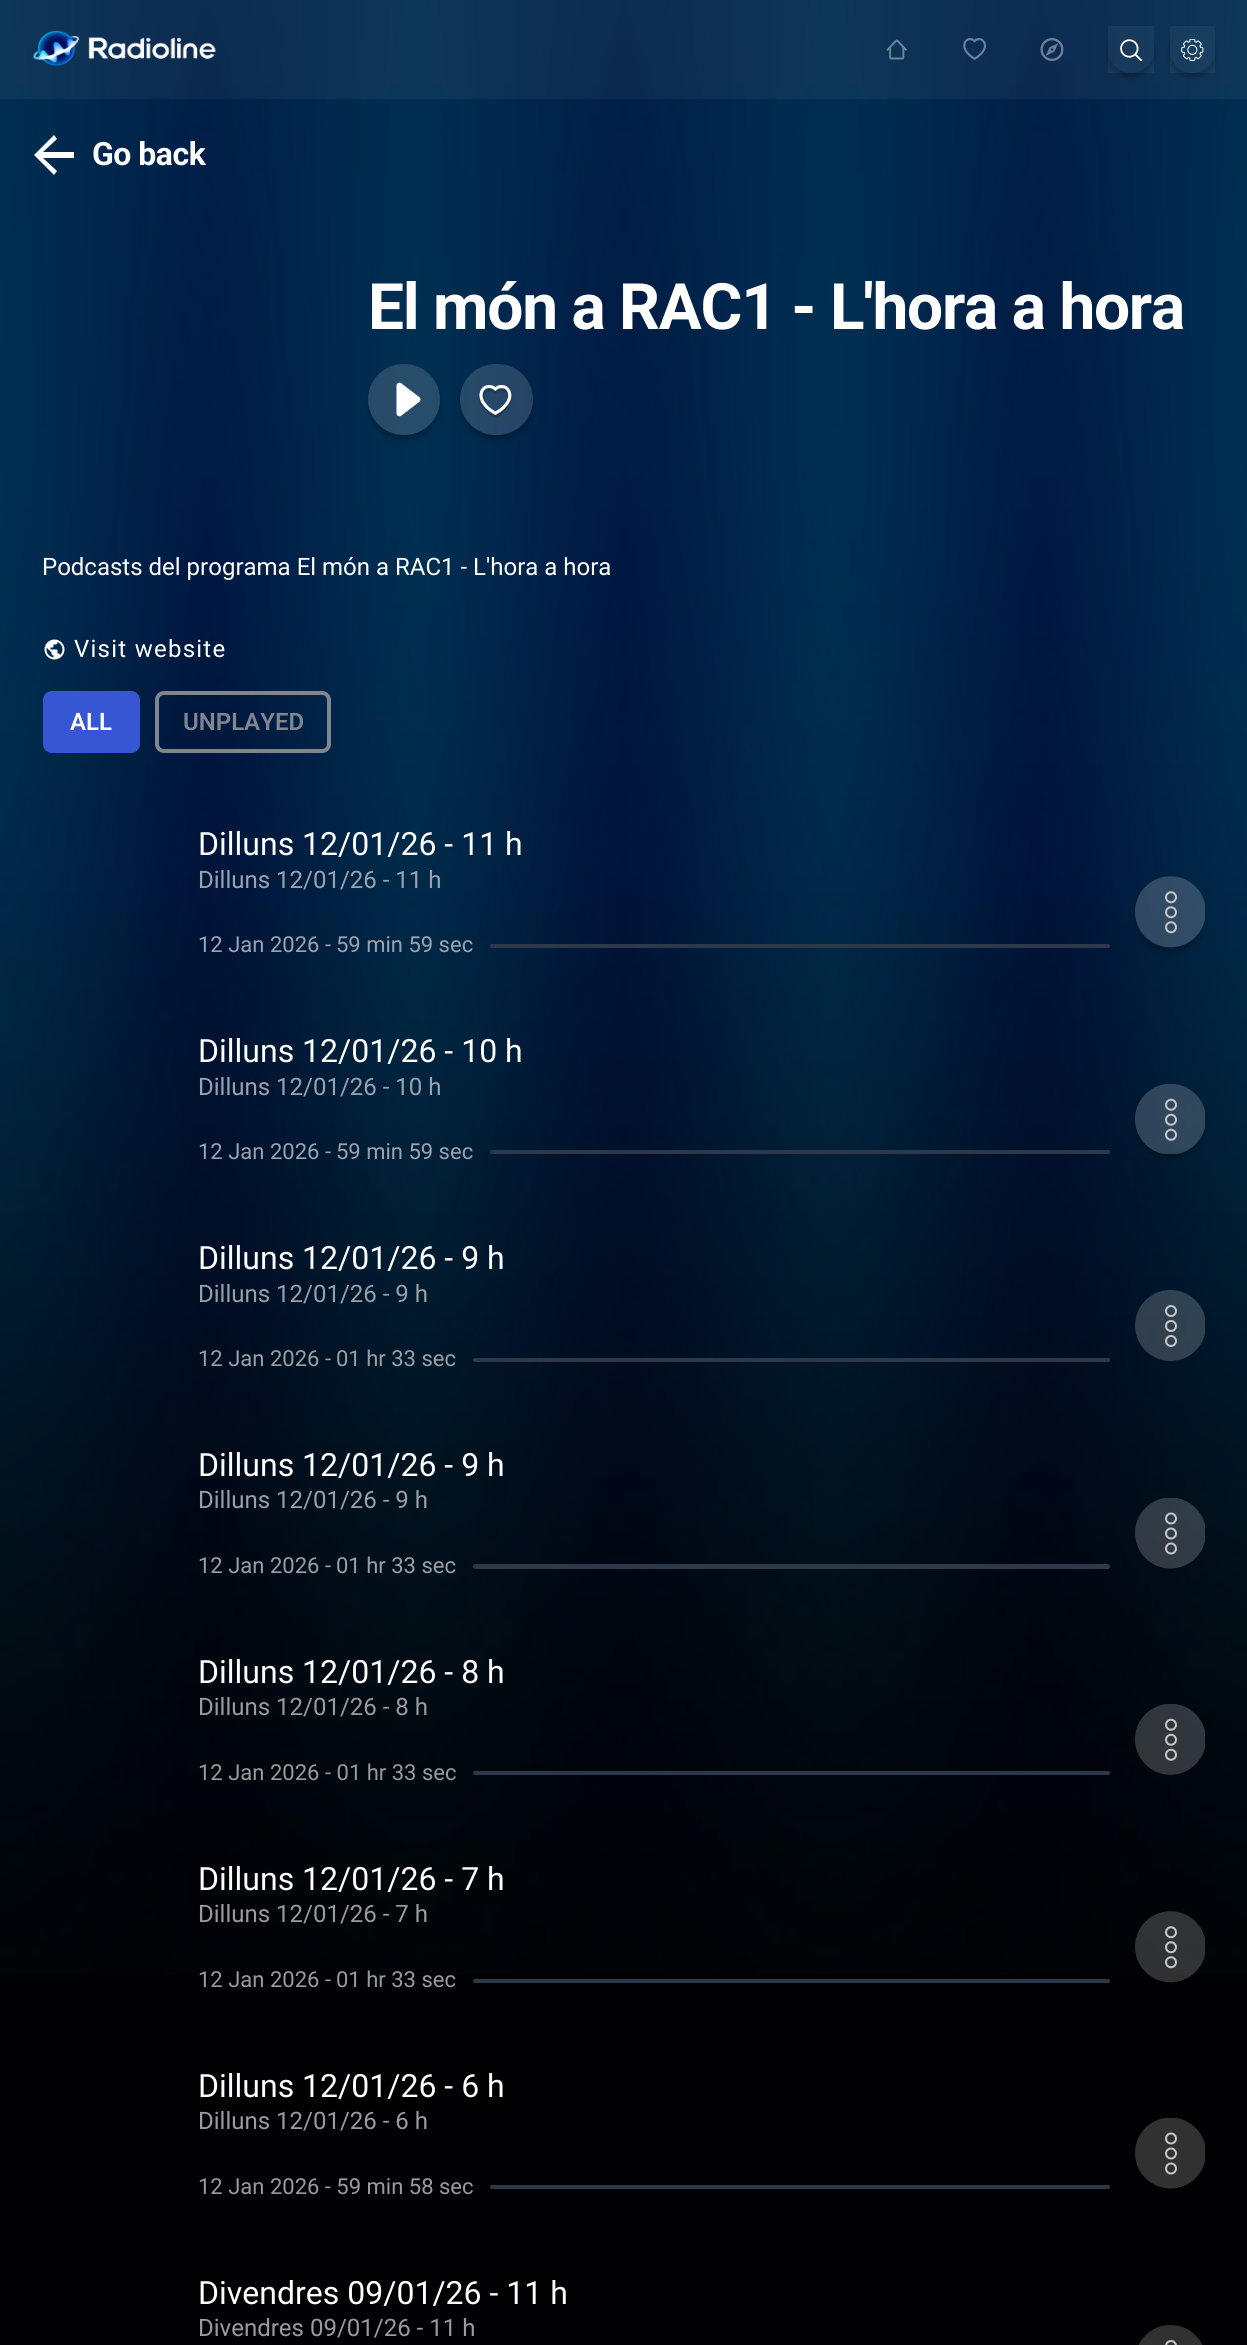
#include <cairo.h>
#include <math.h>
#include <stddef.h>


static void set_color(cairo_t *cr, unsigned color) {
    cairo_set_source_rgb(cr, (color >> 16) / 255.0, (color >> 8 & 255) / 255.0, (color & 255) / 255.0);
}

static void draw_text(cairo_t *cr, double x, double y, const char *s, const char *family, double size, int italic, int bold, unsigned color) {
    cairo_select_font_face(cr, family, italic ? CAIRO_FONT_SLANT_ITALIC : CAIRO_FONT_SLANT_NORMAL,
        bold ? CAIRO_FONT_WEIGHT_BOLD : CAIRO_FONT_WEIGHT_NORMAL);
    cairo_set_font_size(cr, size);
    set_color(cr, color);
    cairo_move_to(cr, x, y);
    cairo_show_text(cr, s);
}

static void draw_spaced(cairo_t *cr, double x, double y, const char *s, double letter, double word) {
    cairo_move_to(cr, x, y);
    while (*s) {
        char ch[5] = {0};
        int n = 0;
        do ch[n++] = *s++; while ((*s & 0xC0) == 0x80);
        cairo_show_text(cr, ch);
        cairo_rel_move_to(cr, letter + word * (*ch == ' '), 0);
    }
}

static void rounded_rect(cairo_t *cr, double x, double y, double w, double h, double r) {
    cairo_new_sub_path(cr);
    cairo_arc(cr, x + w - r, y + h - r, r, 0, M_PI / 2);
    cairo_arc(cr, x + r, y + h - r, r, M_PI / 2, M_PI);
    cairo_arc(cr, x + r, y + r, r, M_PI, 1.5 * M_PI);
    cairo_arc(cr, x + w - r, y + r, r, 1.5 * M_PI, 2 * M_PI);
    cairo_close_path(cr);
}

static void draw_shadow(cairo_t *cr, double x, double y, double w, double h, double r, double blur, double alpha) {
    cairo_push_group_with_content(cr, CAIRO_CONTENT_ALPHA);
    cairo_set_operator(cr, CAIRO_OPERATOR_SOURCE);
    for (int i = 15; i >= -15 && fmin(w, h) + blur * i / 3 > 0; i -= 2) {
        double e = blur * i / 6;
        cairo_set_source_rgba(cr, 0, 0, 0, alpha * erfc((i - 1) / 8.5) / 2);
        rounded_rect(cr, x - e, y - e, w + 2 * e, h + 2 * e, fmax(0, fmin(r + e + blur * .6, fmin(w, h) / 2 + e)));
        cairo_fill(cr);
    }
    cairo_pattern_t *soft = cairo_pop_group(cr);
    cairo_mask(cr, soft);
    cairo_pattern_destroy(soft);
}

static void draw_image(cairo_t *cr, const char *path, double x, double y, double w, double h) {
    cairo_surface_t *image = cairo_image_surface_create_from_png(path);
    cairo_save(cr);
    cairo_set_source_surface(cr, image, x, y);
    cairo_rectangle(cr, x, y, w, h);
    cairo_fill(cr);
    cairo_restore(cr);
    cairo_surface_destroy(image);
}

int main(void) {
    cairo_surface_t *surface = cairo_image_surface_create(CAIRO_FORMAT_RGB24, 1247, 2345);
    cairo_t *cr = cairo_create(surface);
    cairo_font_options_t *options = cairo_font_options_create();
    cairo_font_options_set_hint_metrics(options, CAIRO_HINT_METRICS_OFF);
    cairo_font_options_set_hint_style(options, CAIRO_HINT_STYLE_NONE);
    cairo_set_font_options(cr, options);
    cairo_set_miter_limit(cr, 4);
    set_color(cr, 0x010103);
    cairo_paint(cr);
    draw_image(cr, "assets/img1.png", 0, 0, 1247, 1975);
    cairo_set_source_rgba(cr, 1, 1, 1, 0.05);
    cairo_rectangle(cr, 0, 0, 1247, 99);
    cairo_fill(cr);
    draw_image(cr, "assets/img2.png", 33, 30, 183, 36);
    draw_image(cr, "assets/img3.png", 886, 39, 21, 21);
    draw_image(cr, "assets/img4.png", 963, 38, 23, 22);
    draw_image(cr, "assets/img5.png", 1040, 38, 24, 23);
    cairo_save(cr);
    cairo_set_fill_rule(cr, CAIRO_FILL_RULE_EVEN_ODD);
    cairo_new_path(cr);
    cairo_move_to(cr, 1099, 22);
    cairo_line_to(cr, 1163, 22);
    cairo_line_to(cr, 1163, 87);
    cairo_line_to(cr, 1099, 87);
    cairo_close_path(cr);
    cairo_move_to(cr, 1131, 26);
    cairo_curve_to(cr, 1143.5, 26, 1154, 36.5, 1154, 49);
    cairo_line_to(cr, 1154, 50);
    cairo_curve_to(cr, 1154, 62.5, 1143.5, 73, 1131, 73);
    cairo_curve_to(cr, 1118.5, 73, 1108, 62.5, 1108, 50);
    cairo_line_to(cr, 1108, 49);
    cairo_curve_to(cr, 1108, 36.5, 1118.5, 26, 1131, 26);
    cairo_close_path(cr);
    cairo_clip(cr);
    set_color(cr, 0x000000);
    draw_shadow(cr, 1108, 31, 46, 47, 23, 2.5, 0.25);
    cairo_restore(cr);
    cairo_rectangle(cr, 1108, 26, 46, 47);
    cairo_fill(cr);
    draw_image(cr, "assets/img6.png", 1120, 39, 22, 22);
    cairo_save(cr);
    cairo_set_fill_rule(cr, CAIRO_FILL_RULE_EVEN_ODD);
    cairo_new_path(cr);
    cairo_move_to(cr, 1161, 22);
    cairo_line_to(cr, 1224, 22);
    cairo_line_to(cr, 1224, 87);
    cairo_line_to(cr, 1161, 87);
    cairo_close_path(cr);
    cairo_move_to(cr, 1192.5, 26);
    cairo_curve_to(cr, 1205, 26, 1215, 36, 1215, 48.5);
    cairo_line_to(cr, 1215, 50.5);
    cairo_curve_to(cr, 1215, 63, 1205, 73, 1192.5, 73);
    cairo_curve_to(cr, 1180, 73, 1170, 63, 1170, 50.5);
    cairo_line_to(cr, 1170, 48.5);
    cairo_curve_to(cr, 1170, 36, 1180, 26, 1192.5, 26);
    cairo_close_path(cr);
    cairo_clip(cr);
    set_color(cr, 0x000000);
    draw_shadow(cr, 1170, 31, 45, 47, 22.5, 2.5, 0.25);
    cairo_restore(cr);
    cairo_rectangle(cr, 1170, 26, 45, 47);
    cairo_fill(cr);
    draw_image(cr, "assets/img7.png", 1181, 39, 23, 22);
    set_color(cr, 0xFFFFFF);
    cairo_new_path(cr);
    cairo_move_to(cr, 74, 152);
    cairo_line_to(cr, 43, 152);
    cairo_line_to(cr, 57, 139);
    cairo_line_to(cr, 54, 135);
    cairo_line_to(cr, 34, 155);
    cairo_line_to(cr, 54, 175);
    cairo_line_to(cr, 57, 171);
    cairo_line_to(cr, 43, 158);
    cairo_line_to(cr, 74, 158);
    cairo_close_path(cr);
    cairo_fill(cr);
    cairo_select_font_face(cr, "Roboto", CAIRO_FONT_SLANT_NORMAL, CAIRO_FONT_WEIGHT_BOLD);
    cairo_set_font_size(cr, 32);
    draw_spaced(cr, 92, 165, "Go back", -0.5, 0);
    cairo_set_font_size(cr, 64);
    draw_spaced(cr, 368, 329, "El món a RAC1 - L'hora a hora", -1.25, 0);
    cairo_save(cr);
    cairo_set_fill_rule(cr, CAIRO_FILL_RULE_EVEN_ODD);
    cairo_new_path(cr);
    cairo_move_to(cr, 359, 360);
    cairo_line_to(cr, 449, 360);
    cairo_line_to(cr, 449, 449);
    cairo_line_to(cr, 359, 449);
    cairo_close_path(cr);
    cairo_move_to(cr, 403.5, 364);
    cairo_line_to(cr, 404.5, 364);
    cairo_curve_to(cr, 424, 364, 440, 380, 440, 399.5);
    cairo_curve_to(cr, 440, 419, 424, 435, 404.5, 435);
    cairo_line_to(cr, 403.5, 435);
    cairo_curve_to(cr, 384, 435, 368, 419, 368, 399.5);
    cairo_curve_to(cr, 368, 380, 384, 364, 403.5, 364);
    cairo_close_path(cr);
    cairo_clip(cr);
    set_color(cr, 0x000000);
    draw_shadow(cr, 368, 369, 72, 71, 35.5, 2.5, 0.25);
    cairo_restore(cr);
    cairo_set_source_rgba(cr, 1, 1, 1, 0.15);
    rounded_rect(cr, 368, 364, 72, 71, 35.5);
    cairo_fill(cr);
    draw_image(cr, "assets/img8.png", 396, 382, 25, 35);
    cairo_save(cr);
    cairo_set_fill_rule(cr, CAIRO_FILL_RULE_EVEN_ODD);
    cairo_new_path(cr);
    cairo_move_to(cr, 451, 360);
    cairo_line_to(cr, 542, 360);
    cairo_line_to(cr, 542, 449);
    cairo_line_to(cr, 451, 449);
    cairo_close_path(cr);
    cairo_move_to(cr, 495.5, 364);
    cairo_line_to(cr, 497.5, 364);
    cairo_curve_to(cr, 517, 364, 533, 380, 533, 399.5);
    cairo_curve_to(cr, 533, 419, 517, 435, 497.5, 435);
    cairo_line_to(cr, 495.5, 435);
    cairo_curve_to(cr, 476, 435, 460, 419, 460, 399.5);
    cairo_curve_to(cr, 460, 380, 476, 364, 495.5, 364);
    cairo_close_path(cr);
    cairo_clip(cr);
    set_color(cr, 0x000000);
    draw_shadow(cr, 460, 369, 73, 71, 35.5, 2.5, 0.25);
    cairo_restore(cr);
    rounded_rect(cr, 460, 364, 73, 71, 35.5);
    cairo_fill(cr);
    draw_image(cr, "assets/img9.png", 478, 385, 35, 33);
    draw_text(cr, 42, 575, "Podcasts del programa El món a RAC1 - L'hora a hora", "Roboto", 24, 0, 0, 0xFFFFFF);
    draw_image(cr, "assets/img10.png", 44, 639, 21, 21);
    draw_spaced(cr, 74, 657, "Visit website", 1.25, 0);
    set_color(cr, 0x3756D3);
    rounded_rect(cr, 45, 693, 93, 58, 7);
    cairo_fill_preserve(cr);
    cairo_set_line_width(cr, 4);
    cairo_stroke(cr);
    draw_text(cr, 70, 730, "ALL", "Roboto SemiBold", 24, 0, 0, 0xFFFFFF);
    rounded_rect(cr, 157, 693, 172, 58, 7);
    set_color(cr, 0x7F868E);
    cairo_stroke(cr);
    draw_text(cr, 183, 730, "UNPLAYED", "Roboto SemiBold", 24, 0, 0, 0x7F868E);
    draw_text(cr, 198, 855, "Dilluns 12/01/26 - 11 h", "Roboto", 32, 0, 0, 0xFFFFFF);
    draw_text(cr, 198, 888, "Dilluns 12/01/26 - 11 h", "Roboto", 24, 0, 0, 0x99A3B0);
    draw_text(cr, 198, 952, "12 Jan 2026", "Roboto", 22, 0, 0, 0x99A3B0);
    draw_text(cr, 325, 952, "-", "Roboto", 22, 0, 0, 0x99A3B0);
    draw_text(cr, 336, 952, "59 min 59 sec", "Roboto", 22, 0, 0, 0x99A3B0);
    set_color(cr, 0x2E384B);
    rounded_rect(cr, 490, 944, 620, 4, 2);
    cairo_fill(cr);
    cairo_save(cr);
    cairo_set_fill_rule(cr, CAIRO_FILL_RULE_EVEN_ODD);
    cairo_new_path(cr);
    cairo_move_to(cr, 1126, 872);
    cairo_line_to(cr, 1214, 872);
    cairo_line_to(cr, 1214, 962);
    cairo_line_to(cr, 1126, 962);
    cairo_close_path(cr);
    cairo_move_to(cr, 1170, 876);
    cairo_curve_to(cr, 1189.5, 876, 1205, 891.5, 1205, 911);
    cairo_line_to(cr, 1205, 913);
    cairo_curve_to(cr, 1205, 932.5, 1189.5, 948, 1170, 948);
    cairo_curve_to(cr, 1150.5, 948, 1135, 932.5, 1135, 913);
    cairo_line_to(cr, 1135, 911);
    cairo_curve_to(cr, 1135, 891.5, 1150.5, 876, 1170, 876);
    cairo_close_path(cr);
    cairo_clip(cr);
    set_color(cr, 0x000000);
    draw_shadow(cr, 1135, 881, 70, 72, 35, 2.5, 0.25);
    cairo_restore(cr);
    draw_image(cr, "assets/img11.png", 1135, 876, 70, 72);
    draw_text(cr, 198, 1062, "Dilluns 12/01/26 - 10 h", "Roboto", 32, 0, 0, 0xFFFFFF);
    draw_text(cr, 198, 1095, "Dilluns 12/01/26 - 10 h", "Roboto", 24, 0, 0, 0x99A3B0);
    draw_text(cr, 198, 1159, "12 Jan 2026", "Roboto", 22, 0, 0, 0x99A3B0);
    draw_text(cr, 325, 1159, "-", "Roboto", 22, 0, 0, 0x99A3B0);
    draw_text(cr, 336, 1159, "59 min 59 sec", "Roboto", 22, 0, 0, 0x99A3B0);
    set_color(cr, 0x2E384B);
    rounded_rect(cr, 490, 1150, 620, 4, 2);
    cairo_fill(cr);
    cairo_save(cr);
    cairo_set_fill_rule(cr, CAIRO_FILL_RULE_EVEN_ODD);
    cairo_new_path(cr);
    cairo_move_to(cr, 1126, 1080);
    cairo_line_to(cr, 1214, 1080);
    cairo_line_to(cr, 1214, 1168);
    cairo_line_to(cr, 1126, 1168);
    cairo_close_path(cr);
    cairo_move_to(cr, 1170, 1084);
    cairo_curve_to(cr, 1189.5, 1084, 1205, 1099.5, 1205, 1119);
    cairo_curve_to(cr, 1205, 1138.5, 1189.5, 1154, 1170, 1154);
    cairo_curve_to(cr, 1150.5, 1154, 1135, 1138.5, 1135, 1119);
    cairo_curve_to(cr, 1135, 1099.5, 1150.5, 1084, 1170, 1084);
    cairo_close_path(cr);
    cairo_clip(cr);
    set_color(cr, 0x000000);
    draw_shadow(cr, 1135, 1089, 70, 70, 35, 2.5, 0.25);
    cairo_restore(cr);
    draw_image(cr, "assets/img12.png", 1135, 1084, 70, 70);
    draw_text(cr, 198, 1269, "Dilluns 12/01/26 - 9 h", "Roboto", 32, 0, 0, 0xFFFFFF);
    draw_text(cr, 198, 1302, "Dilluns 12/01/26 - 9 h", "Roboto", 24, 0, 0, 0x999FA6);
    draw_text(cr, 198, 1366, "12 Jan 2026", "Roboto", 22, 0, 0, 0x999FA6);
    draw_text(cr, 325, 1366, "-", "Roboto", 22, 0, 0, 0x999FA6);
    draw_text(cr, 336, 1366, "01 hr 33 sec", "Roboto", 22, 0, 0, 0x999FA6);
    set_color(cr, 0x2E384B);
    rounded_rect(cr, 473, 1358, 637, 4, 2);
    cairo_fill(cr);
    draw_image(cr, "assets/img13.png", 1135, 1290, 70, 71);
    draw_text(cr, 198, 1476, "Dilluns 12/01/26 - 9 h", "Roboto", 32, 0, 0, 0xFFFFFF);
    draw_text(cr, 198, 1508, "Dilluns 12/01/26 - 9 h", "Roboto", 24, 0, 0, 0x999FA6);
    draw_text(cr, 198, 1573, "12 Jan 2026", "Roboto", 22, 0, 0, 0x999FA6);
    draw_text(cr, 325, 1573, "-", "Roboto", 22, 0, 0, 0x999FA6);
    draw_text(cr, 336, 1573, "01 hr 33 sec", "Roboto", 22, 0, 0, 0x999FA6);
    set_color(cr, 0x2E384B);
    rounded_rect(cr, 473, 1564, 637, 5, 2.5);
    cairo_fill(cr);
    draw_image(cr, "assets/img14.png", 1135, 1498, 70, 71);
    draw_text(cr, 198, 1683, "Dilluns 12/01/26 - 8 h", "Roboto", 32, 0, 0, 0xFFFFFF);
    draw_text(cr, 198, 1715, "Dilluns 12/01/26 - 8 h", "Roboto", 24, 0, 0, 0x999B9E);
    draw_text(cr, 198, 1780, "12 Jan 2026", "Roboto", 22, 0, 0, 0x999B9E);
    draw_text(cr, 325, 1780, "- 01 hr 33 sec", "Roboto", 22, 0, 0, 0x999B9E);
    set_color(cr, 0x2E384B);
    rounded_rect(cr, 473, 1771, 637, 4, 2);
    cairo_fill(cr);
    draw_image(cr, "assets/img15.png", 1135, 1704, 70, 71);
    draw_text(cr, 198, 1890, "Dilluns 12/01/26 - 7 h", "Roboto", 32, 0, 0, 0xFFFFFF);
    draw_text(cr, 198, 1922, "Dilluns 12/01/26 - 7 h", "Roboto", 24, 0, 0, 0x999B9E);
    draw_text(cr, 198, 1987, "12 Jan 2026", "Roboto", 22, 0, 0, 0x999B9E);
    draw_text(cr, 325, 1987, "-", "Roboto", 22, 0, 0, 0x999B9E);
    draw_text(cr, 336, 1987, "01 hr 33 sec", "Roboto", 22, 0, 0, 0x999B9E);
    set_color(cr, 0x2E384B);
    rounded_rect(cr, 473, 1979, 637, 4, 2);
    cairo_fill(cr);
    draw_image(cr, "assets/img16.png", 1135, 1911, 70, 72);
    draw_text(cr, 198, 2097, "Dilluns 12/01/26 - 6 h", "Roboto", 32, 0, 0, 0xFFFFFF);
    draw_text(cr, 198, 2129, "Dilluns 12/01/26 - 6 h", "Roboto", 24, 0, 0, 0x999B9E);
    draw_text(cr, 198, 2194, "12 Jan 2026 - 59 min 58 sec", "Roboto", 22, 0, 0, 0x999B9E);
    set_color(cr, 0x2E384B);
    rounded_rect(cr, 490, 2185, 620, 4, 2);
    cairo_fill(cr);
    draw_image(cr, "assets/img17.png", 1135, 2118, 70, 71);
    draw_text(cr, 198, 2304, "Divendres 09/01/26 - 11 h", "Roboto", 32, 0, 0, 0xFFFFFF);
    draw_text(cr, 198, 2336, "Divendres 09/01/26 - 11 h", "Roboto", 24, 0, 0, 0x999B9E);
    draw_image(cr, "assets/img18.png", 1138, 2325, 65, 20);
    cairo_surface_write_to_png(surface, "output.png");
    cairo_font_options_destroy(options);
    cairo_destroy(cr);
    cairo_surface_destroy(surface);
    return 0;
}
